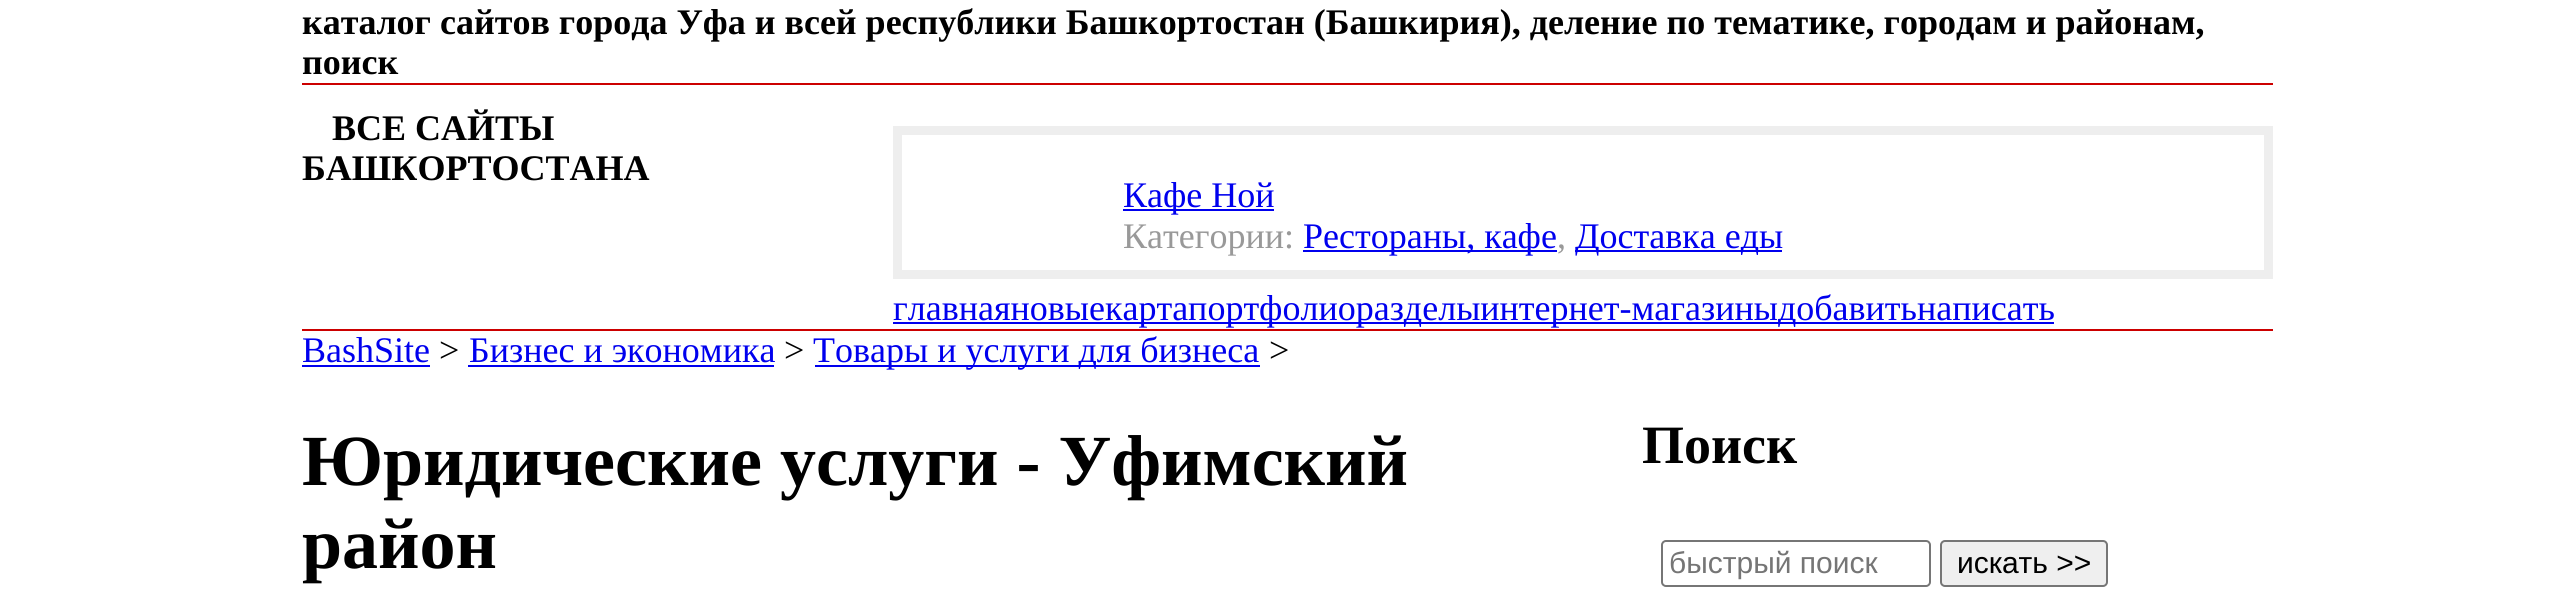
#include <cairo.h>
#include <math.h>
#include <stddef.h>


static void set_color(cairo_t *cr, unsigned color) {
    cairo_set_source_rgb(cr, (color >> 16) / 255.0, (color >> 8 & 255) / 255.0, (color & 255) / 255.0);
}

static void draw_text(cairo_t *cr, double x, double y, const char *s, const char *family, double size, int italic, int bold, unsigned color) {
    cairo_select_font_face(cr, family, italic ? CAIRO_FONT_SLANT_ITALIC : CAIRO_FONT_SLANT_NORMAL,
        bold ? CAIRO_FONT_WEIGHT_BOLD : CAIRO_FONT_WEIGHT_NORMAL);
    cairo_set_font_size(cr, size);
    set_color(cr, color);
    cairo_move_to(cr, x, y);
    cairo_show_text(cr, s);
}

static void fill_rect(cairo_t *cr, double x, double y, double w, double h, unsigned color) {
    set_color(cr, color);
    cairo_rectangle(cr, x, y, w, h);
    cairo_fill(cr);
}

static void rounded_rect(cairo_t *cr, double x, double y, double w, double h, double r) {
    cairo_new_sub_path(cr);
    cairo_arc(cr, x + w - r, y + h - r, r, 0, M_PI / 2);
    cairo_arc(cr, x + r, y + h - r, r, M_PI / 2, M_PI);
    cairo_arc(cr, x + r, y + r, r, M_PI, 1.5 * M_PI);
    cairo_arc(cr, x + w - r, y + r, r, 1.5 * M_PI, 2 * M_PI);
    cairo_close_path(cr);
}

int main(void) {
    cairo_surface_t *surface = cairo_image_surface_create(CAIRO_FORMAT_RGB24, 2573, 589);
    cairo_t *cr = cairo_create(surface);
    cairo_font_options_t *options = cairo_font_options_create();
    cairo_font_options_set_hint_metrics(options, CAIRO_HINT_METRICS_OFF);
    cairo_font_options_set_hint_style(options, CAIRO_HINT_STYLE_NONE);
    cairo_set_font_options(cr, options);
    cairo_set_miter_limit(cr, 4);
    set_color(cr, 0xFFFFFF);
    cairo_paint(cr);
    draw_text(cr, 302, 34, "каталог сайтов города Уфа и всей республики Башкортостан (Башкирия), деление по тематике, городам и районам,", "Liberation Serif", 36, 0, 1, 0x000000);
    draw_text(cr, 302, 74, "поиск", "Liberation Serif", 36, 0, 1, 0x000000);
    fill_rect(cr, 302, 83, 1971, 2, 0xCC0000);
    fill_rect(cr, 302, 329, 1971, 2, 0xCC0000);
    draw_text(cr, 332, 140, "ВСЕ САЙТЫ", "Liberation Serif", 36, 0, 1, 0x000000);
    draw_text(cr, 302, 180, "БАШКОРТОСТАНА", "Liberation Serif", 36, 0, 1, 0x000000);
    cairo_rectangle(cr, 897.5, 130.5, 1371, 144);
    set_color(cr, 0xEEEEEE);
    cairo_set_line_width(cr, 9);
    cairo_stroke(cr);
    fill_rect(cr, 1123, 209, 151, 2, 0x0000EE);
    draw_text(cr, 1123, 207, "Кафе Ной", "Liberation Serif", 36, 0, 0, 0x0000EE);
    draw_text(cr, 1123, 248, "Категории:", "Liberation Serif", 36, 0, 0, 0x999999);
    fill_rect(cr, 1303, 250, 254, 2, 0x0000EE);
    draw_text(cr, 1303, 248, "Рестораны, кафе", "Liberation Serif", 36, 0, 0, 0x0000EE);
    draw_text(cr, 1557, 248, ",", "Liberation Serif", 36, 0, 0, 0x999999);
    fill_rect(cr, 1575, 250, 207, 2, 0x0000EE);
    draw_text(cr, 1575, 248, "Доставка еды", "Liberation Serif", 36, 0, 0, 0x0000EE);
    fill_rect(cr, 893, 322, 1161, 2, 0x0000EE);
    draw_text(cr, 893, 320, "главнаяновыекартапортфолиоразделыинтернет-магазиныдобавитьнаписать", "Liberation Serif", 36, 0, 0, 0x0000EE);
    draw_text(cr, 302, 362, "BashSite", "Liberation Serif", 36, 0, 0, 0x0000EE);
    fill_rect(cr, 302, 365, 128, 2, 0x0000EE);
    draw_text(cr, 439, 362, ">", "Liberation Serif", 36, 0, 0, 0x000000);
    draw_text(cr, 469, 362, "Бизнес и экономика", "Liberation Serif", 36, 0, 0, 0x0000EE);
    fill_rect(cr, 468, 365, 306, 2, 0x0000EE);
    draw_text(cr, 784, 362, ">", "Liberation Serif", 36, 0, 0, 0x000000);
    fill_rect(cr, 815, 365, 445, 2, 0x0000EE);
    draw_text(cr, 813, 362, "Товары и услуги для бизнеса", "Liberation Serif", 36, 0, 0, 0x0000EE);
    draw_text(cr, 1269, 362, ">", "Liberation Serif", 36, 0, 0, 0x000000);
    draw_text(cr, 302, 485, "Юридические услуги - Уфимский", "Liberation Serif", 72, 0, 1, 0x000000);
    draw_text(cr, 302, 568, "район", "Liberation Serif", 72, 0, 1, 0x000000);
    draw_text(cr, 1642, 463, "Поиск", "Liberation Serif", 54, 0, 1, 0x000000);
    rounded_rect(cr, 1662, 541, 268, 45, 4);
    set_color(cr, 0x767676);
    cairo_set_line_width(cr, 2);
    cairo_stroke(cr);
    draw_text(cr, 1669, 573, "быстрый поиск", "Liberation Sans", 30, 0, 0, 0x757575);
    set_color(cr, 0xEFEFEF);
    rounded_rect(cr, 1941, 541, 166, 45, 4);
    cairo_fill_preserve(cr);
    set_color(cr, 0x767676);
    cairo_stroke(cr);
    draw_text(cr, 1957, 573, "искать >>", "Liberation Sans", 30, 0, 0, 0x000000);
    cairo_surface_write_to_png(surface, "output.png");
    cairo_font_options_destroy(options);
    cairo_destroy(cr);
    cairo_surface_destroy(surface);
    return 0;
}
